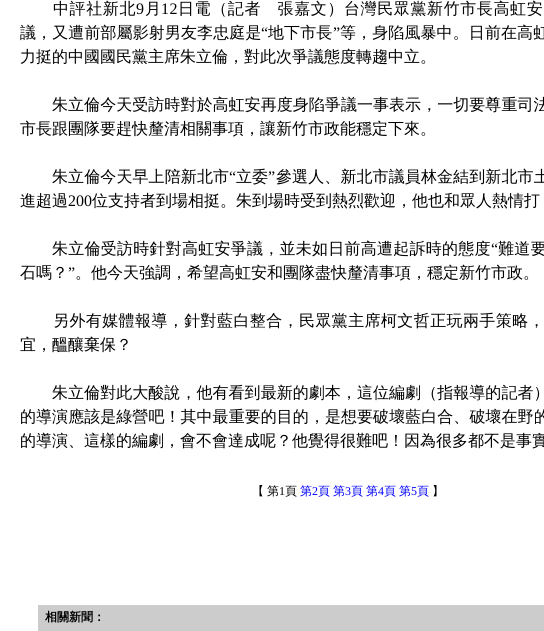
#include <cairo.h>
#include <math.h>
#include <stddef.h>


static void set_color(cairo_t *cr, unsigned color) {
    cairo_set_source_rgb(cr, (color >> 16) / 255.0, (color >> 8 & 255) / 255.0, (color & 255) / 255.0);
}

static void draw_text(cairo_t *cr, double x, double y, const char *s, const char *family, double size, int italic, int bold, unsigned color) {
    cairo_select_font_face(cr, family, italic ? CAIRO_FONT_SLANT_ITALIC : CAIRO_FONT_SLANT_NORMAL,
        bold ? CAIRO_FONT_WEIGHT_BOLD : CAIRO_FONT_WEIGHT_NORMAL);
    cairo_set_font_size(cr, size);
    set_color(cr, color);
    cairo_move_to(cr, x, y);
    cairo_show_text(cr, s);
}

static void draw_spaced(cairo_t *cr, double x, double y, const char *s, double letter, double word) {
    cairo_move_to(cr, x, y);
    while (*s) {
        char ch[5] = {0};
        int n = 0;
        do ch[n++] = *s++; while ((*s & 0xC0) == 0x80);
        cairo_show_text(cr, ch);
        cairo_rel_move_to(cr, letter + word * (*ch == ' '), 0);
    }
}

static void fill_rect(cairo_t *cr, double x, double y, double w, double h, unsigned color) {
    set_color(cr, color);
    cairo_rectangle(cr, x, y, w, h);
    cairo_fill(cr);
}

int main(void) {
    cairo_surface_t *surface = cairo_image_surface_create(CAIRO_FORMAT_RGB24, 544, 631);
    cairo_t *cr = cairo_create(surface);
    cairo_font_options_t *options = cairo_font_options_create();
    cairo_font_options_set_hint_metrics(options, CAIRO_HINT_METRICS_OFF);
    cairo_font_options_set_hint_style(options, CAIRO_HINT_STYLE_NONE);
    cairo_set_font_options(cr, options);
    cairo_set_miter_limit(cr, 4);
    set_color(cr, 0xFFFFFF);
    cairo_paint(cr);
    cairo_select_font_face(cr, "WenQuanYi Zen Hei Medium", CAIRO_FONT_SLANT_NORMAL, CAIRO_FONT_WEIGHT_NORMAL);
    cairo_set_font_size(cr, 16);
    set_color(cr, 0x000000);
    draw_spaced(cr, 53, 14, "中評社新北", 0.6, 0);
    cairo_select_font_face(cr, "Liberation Serif", CAIRO_FONT_SLANT_NORMAL, CAIRO_FONT_WEIGHT_NORMAL);
    draw_spaced(cr, 136, 14, "9", 0.6, 0);
    cairo_select_font_face(cr, "WenQuanYi Zen Hei Medium", CAIRO_FONT_SLANT_NORMAL, CAIRO_FONT_WEIGHT_NORMAL);
    draw_spaced(cr, 145, 14, "月", 0.6, 0);
    cairo_select_font_face(cr, "Liberation Serif", CAIRO_FONT_SLANT_NORMAL, CAIRO_FONT_WEIGHT_NORMAL);
    draw_spaced(cr, 161, 14, "12", 0.6, 0);
    cairo_select_font_face(cr, "WenQuanYi Zen Hei Medium", CAIRO_FONT_SLANT_NORMAL, CAIRO_FONT_WEIGHT_NORMAL);
    draw_spaced(cr, 178, 14, "日電（記者　張嘉文）台灣民眾黨新竹市長高虹安", 0.6, 0);
    draw_spaced(cr, 20, 38, "議，又遭前部屬影射男友李忠庭是", 0.1, 0);
    cairo_select_font_face(cr, "Liberation Serif", CAIRO_FONT_SLANT_NORMAL, CAIRO_FONT_WEIGHT_NORMAL);
    draw_spaced(cr, 261, 38, "“", 0.1, 0);
    cairo_select_font_face(cr, "WenQuanYi Zen Hei Medium", CAIRO_FONT_SLANT_NORMAL, CAIRO_FONT_WEIGHT_NORMAL);
    draw_spaced(cr, 268, 38, "地下市長", 0.1, 0);
    cairo_select_font_face(cr, "Liberation Serif", CAIRO_FONT_SLANT_NORMAL, CAIRO_FONT_WEIGHT_NORMAL);
    draw_spaced(cr, 333, 38, "”", 0.1, 0);
    cairo_select_font_face(cr, "WenQuanYi Zen Hei Medium", CAIRO_FONT_SLANT_NORMAL, CAIRO_FONT_WEIGHT_NORMAL);
    draw_spaced(cr, 340, 38, "等，身陷風暴中。日前在高虹", 0.1, 0);
    draw_text(cr, 20, 62, "力挺的中國國民黨主席朱立倫，對此次爭議態度轉趨中立。", "WenQuanYi Zen Hei Medium", 16, 0, 0, 0x000000);
    draw_spaced(cr, 52, 110, "朱立倫今天受訪時對於高虹安再度身陷爭議一事表示，一切要尊重司法", 0.05, 0);
    draw_text(cr, 20, 134, "市長跟團隊要趕快釐清相關事項，讓新竹市政能穩定下來。", "WenQuanYi Zen Hei Medium", 16, 0, 0, 0x000000);
    draw_spaced(cr, 52, 182, "朱立倫今天早上陪新北市", 0.1, 0);
    cairo_select_font_face(cr, "Liberation Serif", CAIRO_FONT_SLANT_NORMAL, CAIRO_FONT_WEIGHT_NORMAL);
    draw_spaced(cr, 229, 182, "“", 0.1, 0);
    cairo_select_font_face(cr, "WenQuanYi Zen Hei Medium", CAIRO_FONT_SLANT_NORMAL, CAIRO_FONT_WEIGHT_NORMAL);
    draw_spaced(cr, 236, 182, "立委", 0.1, 0);
    cairo_select_font_face(cr, "Liberation Serif", CAIRO_FONT_SLANT_NORMAL, CAIRO_FONT_WEIGHT_NORMAL);
    draw_spaced(cr, 268, 182, "”", 0.1, 0);
    cairo_select_font_face(cr, "WenQuanYi Zen Hei Medium", CAIRO_FONT_SLANT_NORMAL, CAIRO_FONT_WEIGHT_NORMAL);
    draw_spaced(cr, 276, 182, "參選人、新北市議員林金結到新北市土", 0.1, 0);
    draw_text(cr, 20, 206, "進超過", "WenQuanYi Zen Hei Medium", 16, 0, 0, 0x000000);
    draw_text(cr, 68, 206, "200", "Liberation Serif", 16, 0, 0, 0x000000);
    draw_text(cr, 92, 206, "位支持者到場相挺。朱到場時受到熱烈歡迎，他也和眾人熱情打", "WenQuanYi Zen Hei Medium", 16, 0, 0, 0x000000);
    draw_spaced(cr, 52, 254, "朱立倫受訪時針對高虹安爭議，並未如日前高遭起訴時的態度", 0.25, 0);
    cairo_select_font_face(cr, "Liberation Serif", CAIRO_FONT_SLANT_NORMAL, CAIRO_FONT_WEIGHT_NORMAL);
    draw_spaced(cr, 491, 254, "“", 0.25, 0);
    cairo_select_font_face(cr, "WenQuanYi Zen Hei Medium", CAIRO_FONT_SLANT_NORMAL, CAIRO_FONT_WEIGHT_NORMAL);
    draw_spaced(cr, 498, 254, "難道要", 0.25, 0);
    draw_text(cr, 20, 278, "石嗎？", "WenQuanYi Zen Hei Medium", 16, 0, 0, 0x000000);
    draw_text(cr, 68, 278, "”", "Liberation Serif", 16, 0, 0, 0x000000);
    draw_text(cr, 75, 278, "。他今天強調，希望高虹安和團隊盡快釐清事項，穩定新竹市政。", "WenQuanYi Zen Hei Medium", 16, 0, 0, 0x000000);
    draw_spaced(cr, 53, 326, "另外有媒體報導，針對藍白整合，民眾黨主席柯文哲正玩兩手策略，", 0.4, 0);
    draw_text(cr, 20, 350, "宜，醞釀棄保？", "WenQuanYi Zen Hei Medium", 16, 0, 0, 0x000000);
    draw_spaced(cr, 52, 398, "朱立倫對此大酸說，他有看到最新的劇本，這位編劇（指報導的記者）", 0.05, 0);
    draw_spaced(cr, 20, 422, "的導演應該是綠營吧！其中最重要的目的，是想要破壞藍白合、破壞在野的", 0.05, 0);
    draw_text(cr, 20, 446, "的導演、這樣的編劇，會不會達成呢？他覺得很難吧！因為很多都不是事實", "WenQuanYi Zen Hei Medium", 16, 0, 0, 0x000000);
    draw_text(cr, 252, 495, "【", "WenQuanYi Zen Hei Medium", 12, 0, 0, 0x000000);
    draw_text(cr, 267, 495, "第", "WenQuanYi Zen Hei Medium", 12, 0, 0, 0x000000);
    draw_text(cr, 279, 495, "1", "Liberation Serif", 12, 0, 0, 0x000000);
    draw_text(cr, 285, 495, "頁", "WenQuanYi Zen Hei Medium", 12, 0, 0, 0x000000);
    draw_text(cr, 300, 495, "第", "WenQuanYi Zen Hei Medium", 12, 0, 0, 0x0000FF);
    draw_text(cr, 312, 495, "2", "Liberation Serif", 12, 0, 0, 0x0000FF);
    draw_text(cr, 318, 495, "頁", "WenQuanYi Zen Hei Medium", 12, 0, 0, 0x0000FF);
    draw_text(cr, 333, 495, "第", "WenQuanYi Zen Hei Medium", 12, 0, 0, 0x0000FF);
    draw_text(cr, 345, 495, "3", "Liberation Serif", 12, 0, 0, 0x0000FF);
    draw_text(cr, 351, 495, "頁", "WenQuanYi Zen Hei Medium", 12, 0, 0, 0x0000FF);
    draw_text(cr, 366, 495, "第", "WenQuanYi Zen Hei Medium", 12, 0, 0, 0x0000FF);
    draw_text(cr, 378, 495, "4", "Liberation Serif", 12, 0, 0, 0x0000FF);
    draw_text(cr, 384, 495, "頁", "WenQuanYi Zen Hei Medium", 12, 0, 0, 0x0000FF);
    draw_text(cr, 399, 495, "第", "WenQuanYi Zen Hei Medium", 12, 0, 0, 0x0000FF);
    draw_text(cr, 411, 495, "5", "Liberation Serif", 12, 0, 0, 0x0000FF);
    draw_text(cr, 417, 495, "頁", "WenQuanYi Zen Hei Medium", 12, 0, 0, 0x0000FF);
    draw_text(cr, 432, 495, "】", "WenQuanYi Zen Hei Medium", 12, 0, 0, 0x000000);
    fill_rect(cr, 38, 605, 506, 26, 0xCCCCCC);
    draw_text(cr, 45, 621, "相關新聞：", "WenQuanYi Zen Hei", 12, 0, 1, 0x000000);
    cairo_surface_write_to_png(surface, "output.png");
    cairo_font_options_destroy(options);
    cairo_destroy(cr);
    cairo_surface_destroy(surface);
    return 0;
}
